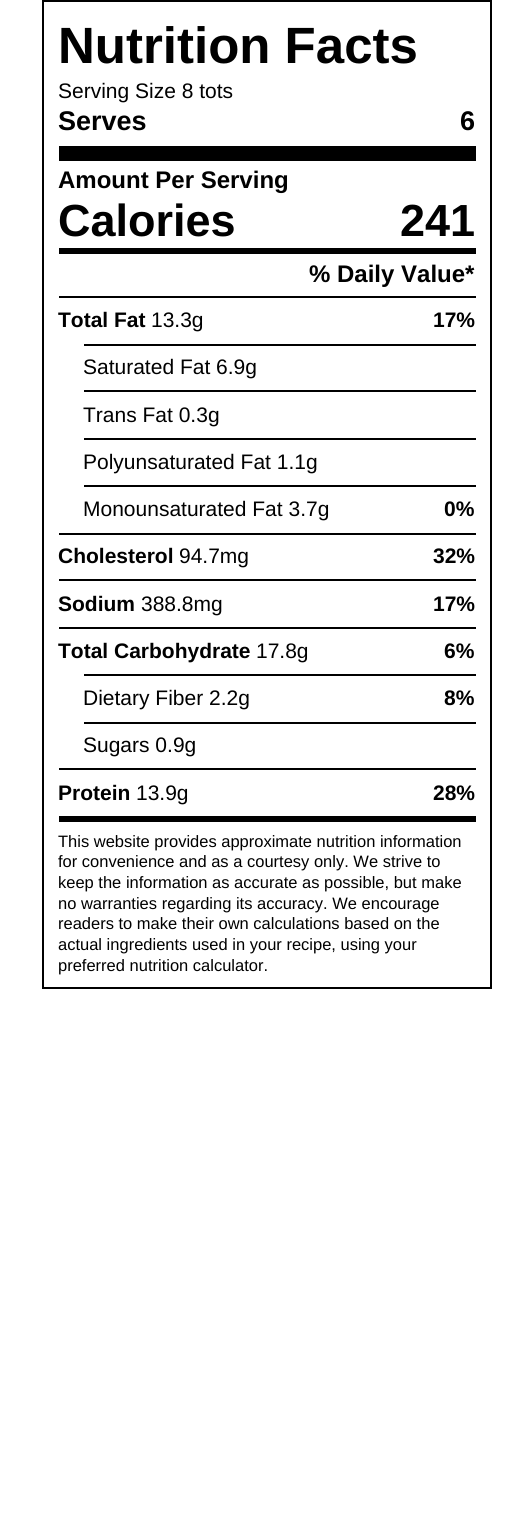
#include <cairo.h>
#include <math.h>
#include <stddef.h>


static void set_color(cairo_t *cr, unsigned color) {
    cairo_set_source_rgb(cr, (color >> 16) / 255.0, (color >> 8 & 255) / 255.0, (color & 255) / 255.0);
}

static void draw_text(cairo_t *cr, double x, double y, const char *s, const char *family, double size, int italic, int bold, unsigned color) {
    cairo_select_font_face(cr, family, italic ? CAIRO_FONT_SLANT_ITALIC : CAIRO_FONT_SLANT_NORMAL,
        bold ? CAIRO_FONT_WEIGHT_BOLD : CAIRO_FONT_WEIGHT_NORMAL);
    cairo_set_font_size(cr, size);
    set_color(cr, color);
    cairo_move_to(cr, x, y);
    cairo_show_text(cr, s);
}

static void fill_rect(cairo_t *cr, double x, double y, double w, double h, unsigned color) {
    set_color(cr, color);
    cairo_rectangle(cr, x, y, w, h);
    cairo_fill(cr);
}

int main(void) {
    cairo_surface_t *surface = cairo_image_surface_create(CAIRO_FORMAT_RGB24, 532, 1527);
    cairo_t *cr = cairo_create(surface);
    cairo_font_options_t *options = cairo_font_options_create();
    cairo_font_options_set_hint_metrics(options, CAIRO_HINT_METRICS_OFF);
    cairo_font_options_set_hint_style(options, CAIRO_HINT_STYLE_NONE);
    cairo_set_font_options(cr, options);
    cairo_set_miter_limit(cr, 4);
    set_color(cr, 0xFFFFFF);
    cairo_paint(cr);
    cairo_rectangle(cr, 43, 1, 448, 987);
    set_color(cr, 0x000000);
    cairo_stroke(cr);
    fill_rect(cr, 59, 146, 417, 15, 0x000000);
    draw_text(cr, 58, 63, "Nutrition Facts", "Liberation Sans", 51, 0, 1, 0x000000);
    draw_text(cr, 58, 98, "Serving Size 8 tots", "Liberation Sans", 21, 0, 0, 0x000000);
    draw_text(cr, 58, 130, "Serves", "Liberation Sans", 27, 0, 1, 0x000000);
    draw_text(cr, 460, 130, "6", "Liberation Sans", 27, 0, 1, 0x000000);
    draw_text(cr, 58, 188, "Amount Per Serving", "Liberation Sans", 24, 0, 1, 0x000000);
    draw_text(cr, 58, 236, "Calories", "Liberation Sans", 45, 0, 1, 0x000000);
    draw_text(cr, 400, 236, "241", "Liberation Sans", 45, 0, 1, 0x000000);
    fill_rect(cr, 59, 248, 417, 6, 0x000000);
    draw_text(cr, 309, 282, "% Daily Value*", "Liberation Sans", 24, 0, 1, 0x000000);
    fill_rect(cr, 59, 296, 417, 2, 0x000000);
    draw_text(cr, 58, 327, "Total Fat", "Liberation Sans", 21, 0, 1, 0x000000);
    draw_text(cr, 151, 327, "13.3g", "Liberation Sans", 21, 0, 0, 0x000000);
    draw_text(cr, 433, 327, "17%", "Liberation Sans", 21, 0, 1, 0x000000);
    fill_rect(cr, 84, 344, 392, 2, 0x000000);
    draw_text(cr, 83, 374, "Saturated Fat 6.9g", "Liberation Sans", 21, 0, 0, 0x000000);
    fill_rect(cr, 84, 390, 392, 2, 0x000000);
    draw_text(cr, 83, 422, "Trans Fat 0.3g", "Liberation Sans", 21, 0, 0, 0x000000);
    fill_rect(cr, 84, 438, 392, 2, 0x000000);
    draw_text(cr, 83, 469, "Polyunsaturated Fat 1.1g", "Liberation Sans", 21, 0, 0, 0x000000);
    fill_rect(cr, 84, 485, 392, 2, 0x000000);
    draw_text(cr, 83, 516, "Monounsaturated Fat 3.7g", "Liberation Sans", 21, 0, 0, 0x000000);
    draw_text(cr, 444, 516, "0%", "Liberation Sans", 21, 0, 1, 0x000000);
    fill_rect(cr, 59, 533, 417, 2, 0x000000);
    draw_text(cr, 58, 563, "Cholesterol", "Liberation Sans", 21, 0, 1, 0x000000);
    draw_text(cr, 179, 563, "94.7mg", "Liberation Sans", 21, 0, 0, 0x000000);
    draw_text(cr, 433, 563, "32%", "Liberation Sans", 21, 0, 1, 0x000000);
    fill_rect(cr, 59, 579, 417, 2, 0x000000);
    draw_text(cr, 58, 611, "Sodium", "Liberation Sans", 21, 0, 1, 0x000000);
    draw_text(cr, 141, 611, "388.8mg", "Liberation Sans", 21, 0, 0, 0x000000);
    draw_text(cr, 433, 611, "17%", "Liberation Sans", 21, 0, 1, 0x000000);
    fill_rect(cr, 59, 627, 417, 2, 0x000000);
    draw_text(cr, 58, 658, "Total Carbohydrate", "Liberation Sans", 21, 0, 1, 0x000000);
    draw_text(cr, 256, 658, "17.8g", "Liberation Sans", 21, 0, 0, 0x000000);
    draw_text(cr, 444, 658, "6%", "Liberation Sans", 21, 0, 1, 0x000000);
    fill_rect(cr, 84, 674, 392, 2, 0x000000);
    draw_text(cr, 83, 705, "Dietary Fiber 2.2g", "Liberation Sans", 21, 0, 0, 0x000000);
    draw_text(cr, 444, 705, "8%", "Liberation Sans", 21, 0, 1, 0x000000);
    fill_rect(cr, 84, 722, 392, 2, 0x000000);
    draw_text(cr, 83, 752, "Sugars 0.9g", "Liberation Sans", 21, 0, 0, 0x000000);
    fill_rect(cr, 59, 768, 417, 2, 0x000000);
    draw_text(cr, 58, 800, "Protein", "Liberation Sans", 21, 0, 1, 0x000000);
    draw_text(cr, 136, 800, "13.9g", "Liberation Sans", 21, 0, 0, 0x000000);
    draw_text(cr, 433, 800, "28%", "Liberation Sans", 21, 0, 1, 0x000000);
    fill_rect(cr, 59, 816, 417, 6, 0x000000);
    draw_text(cr, 58, 847, "This website provides approximate nutrition information", "Liberation Sans", 16.5, 0, 0, 0x000000);
    draw_text(cr, 58, 867, "for convenience and as a courtesy only. We strive to", "Liberation Sans", 16.5, 0, 0, 0x000000);
    draw_text(cr, 58, 888, "keep the information as accurate as possible, but make", "Liberation Sans", 16.5, 0, 0, 0x000000);
    draw_text(cr, 58, 909, "no warranties regarding its accuracy. We encourage", "Liberation Sans", 16.5, 0, 0, 0x000000);
    draw_text(cr, 58, 929, "readers to make their own calculations based on the", "Liberation Sans", 16.5, 0, 0, 0x000000);
    draw_text(cr, 58, 950, "actual ingredients used in your recipe, using your", "Liberation Sans", 16.5, 0, 0, 0x000000);
    draw_text(cr, 58, 971, "preferred nutrition calculator.", "Liberation Sans", 16.5, 0, 0, 0x000000);
    cairo_surface_write_to_png(surface, "output.png");
    cairo_font_options_destroy(options);
    cairo_destroy(cr);
    cairo_surface_destroy(surface);
    return 0;
}
